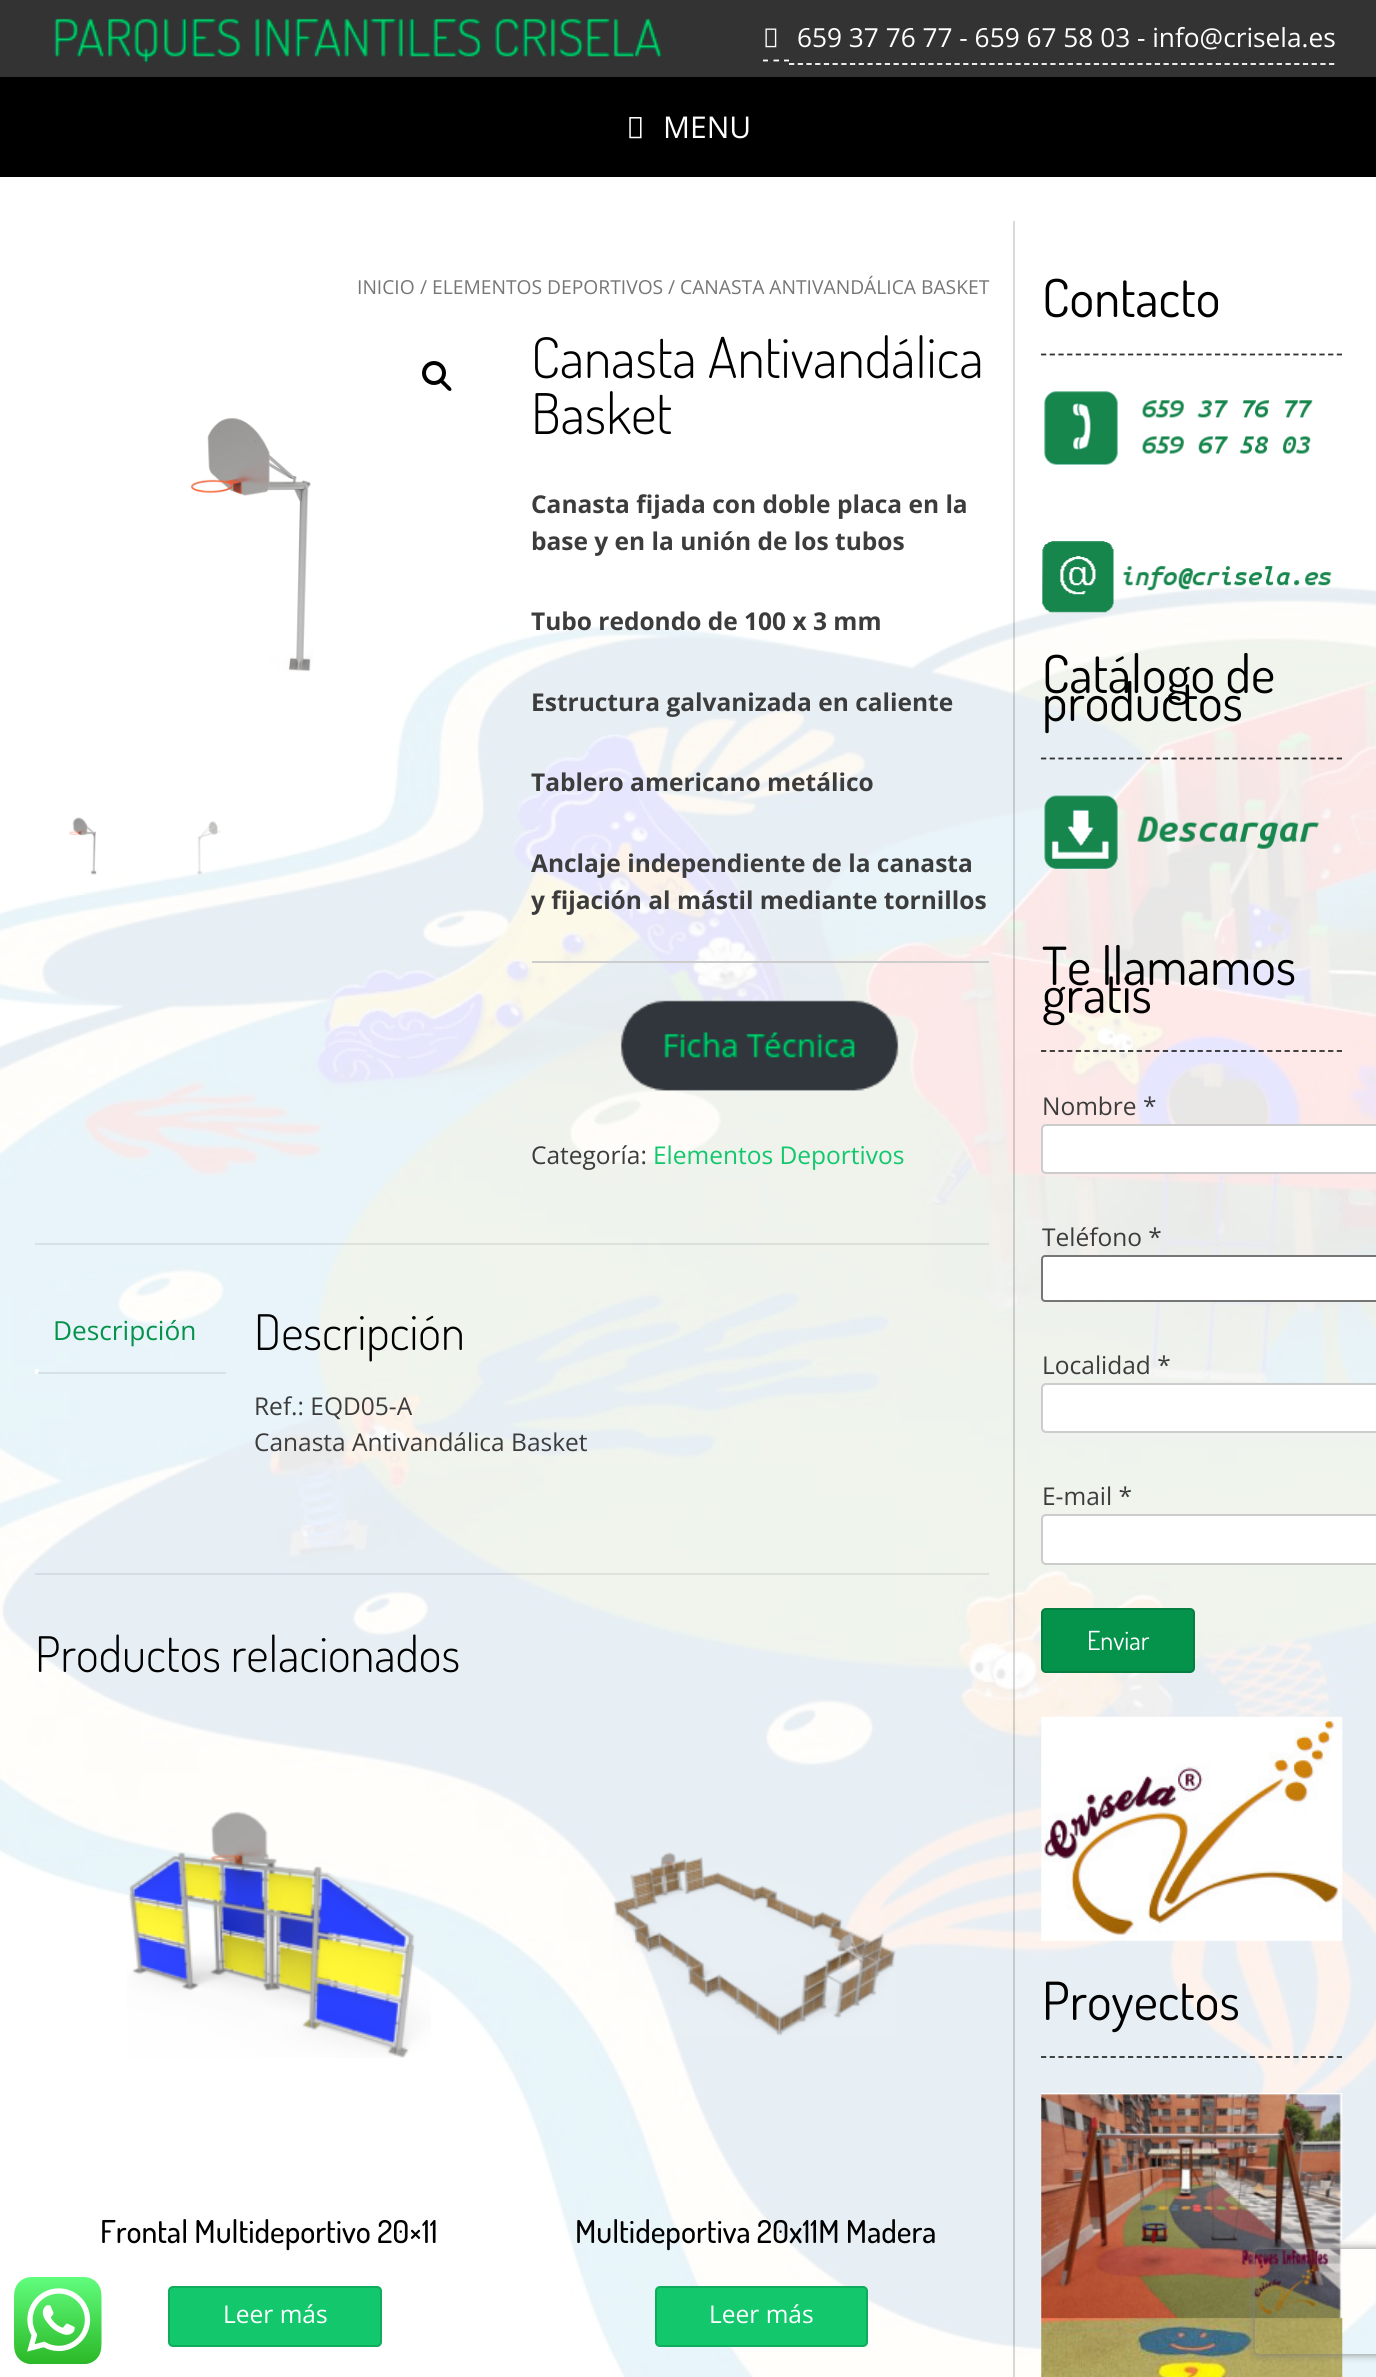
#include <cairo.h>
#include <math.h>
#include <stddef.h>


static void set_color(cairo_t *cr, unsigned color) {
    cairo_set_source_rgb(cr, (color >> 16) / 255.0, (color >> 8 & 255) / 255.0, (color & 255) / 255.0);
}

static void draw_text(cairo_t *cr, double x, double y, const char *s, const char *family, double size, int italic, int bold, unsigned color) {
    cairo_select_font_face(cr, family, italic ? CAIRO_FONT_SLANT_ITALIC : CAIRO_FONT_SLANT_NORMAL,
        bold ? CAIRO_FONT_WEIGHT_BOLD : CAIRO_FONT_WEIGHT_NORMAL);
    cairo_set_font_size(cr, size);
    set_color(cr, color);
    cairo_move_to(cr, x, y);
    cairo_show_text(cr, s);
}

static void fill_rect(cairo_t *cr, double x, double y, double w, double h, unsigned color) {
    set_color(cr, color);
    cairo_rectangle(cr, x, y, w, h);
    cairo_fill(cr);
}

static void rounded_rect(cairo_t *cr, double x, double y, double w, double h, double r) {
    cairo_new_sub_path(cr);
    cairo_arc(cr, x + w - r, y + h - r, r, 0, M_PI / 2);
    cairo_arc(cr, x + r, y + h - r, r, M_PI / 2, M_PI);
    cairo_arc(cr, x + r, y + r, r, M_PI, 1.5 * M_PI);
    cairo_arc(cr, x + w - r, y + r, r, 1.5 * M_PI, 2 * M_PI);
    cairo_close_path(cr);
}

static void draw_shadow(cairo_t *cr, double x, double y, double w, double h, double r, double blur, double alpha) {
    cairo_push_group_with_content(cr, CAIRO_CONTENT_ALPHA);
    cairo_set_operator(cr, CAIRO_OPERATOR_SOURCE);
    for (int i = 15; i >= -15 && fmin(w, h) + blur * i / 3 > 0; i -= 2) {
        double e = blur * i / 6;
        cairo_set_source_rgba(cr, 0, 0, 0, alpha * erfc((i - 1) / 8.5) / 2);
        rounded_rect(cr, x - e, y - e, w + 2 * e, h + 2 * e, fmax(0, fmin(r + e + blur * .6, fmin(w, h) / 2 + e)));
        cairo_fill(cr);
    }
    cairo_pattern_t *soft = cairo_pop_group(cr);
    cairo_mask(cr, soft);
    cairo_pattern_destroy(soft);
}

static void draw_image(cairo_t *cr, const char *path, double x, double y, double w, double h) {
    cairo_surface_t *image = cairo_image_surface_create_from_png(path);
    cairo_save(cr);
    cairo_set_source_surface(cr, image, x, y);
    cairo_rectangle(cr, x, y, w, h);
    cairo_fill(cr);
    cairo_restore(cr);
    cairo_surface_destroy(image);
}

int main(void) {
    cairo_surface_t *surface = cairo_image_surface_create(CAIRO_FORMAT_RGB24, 1376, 2377);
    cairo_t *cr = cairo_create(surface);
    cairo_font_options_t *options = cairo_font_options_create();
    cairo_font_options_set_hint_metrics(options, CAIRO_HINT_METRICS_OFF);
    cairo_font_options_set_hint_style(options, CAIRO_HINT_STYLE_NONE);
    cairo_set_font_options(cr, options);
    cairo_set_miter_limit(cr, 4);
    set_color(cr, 0xFFFFFF);
    cairo_paint(cr);
    draw_image(cr, "assets/img1.png", 0, 562, 1376, 1815);
    fill_rect(cr, 0, 0, 1376, 77, 0x333333);
    draw_image(cr, "assets/img2.png", 54, 18, 608, 46);
    cairo_new_path(cr);
    cairo_move_to(cr, 763, 60.5);
    cairo_line_to(cr, 768, 60.5);
    cairo_move_to(cr, 773.5, 60.5);
    cairo_line_to(cr, 779, 60.5);
    cairo_move_to(cr, 784, 60.5);
    cairo_line_to(cr, 789, 60.5);
    set_color(cr, 0xFFFFFF);
    cairo_set_line_width(cr, 1.8);
    cairo_stroke(cr);
    cairo_new_path(cr);
    cairo_move_to(cr, 789, 64);
    cairo_line_to(cr, 1335, 64);
    cairo_set_dash(cr, (double[]){5.25, 3.46}, 2, 0);
    cairo_stroke(cr);
    draw_image(cr, "assets/img3.png", 765, 28, 12, 20);
    draw_text(cr, 797, 47, "659 37 76 77 - 659 67 58 03 - info@crisela.es", "Open Sans", 26.25, 0, 0, 0xFFFFFF);
    fill_rect(cr, 0, 77, 1376, 100, 0x000000);
    draw_image(cr, "assets/img4.png", 629, 117, 13, 22);
    draw_text(cr, 663, 138, "MENU", "Open Sans", 30, 0, 0, 0xFFFFFF);
    cairo_set_source_rgba(cr, 0, 0, 0, 0.08);
    cairo_new_path(cr);
    cairo_move_to(cr, 1013, 221);
    cairo_line_to(cr, 1013, 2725);
    cairo_line_to(cr, 1341, 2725);
    cairo_line_to(cr, 1015, 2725);
    cairo_line_to(cr, 1015, 221);
    cairo_close_path(cr);
    cairo_fill(cr);
    cairo_rectangle(cr, 1013, 221, 2, 2156);
    cairo_fill(cr);
    draw_text(cr, 357, 294, "INICIO", "Open Sans", 19.25, 0, 0, 0x767676);
    draw_text(cr, 420, 294, "/", "Open Sans", 19.25, 0, 0, 0x767676);
    draw_text(cr, 432, 294, "ELEMENTOS DEPORTIVOS", "Open Sans", 19.25, 0, 0, 0x767676);
    draw_text(cr, 668, 294, "/ CANASTA ANTIVANDÁLICA BASKET", "Open Sans", 19.25, 0, 0, 0x767676);
    cairo_new_path(cr);
    cairo_arc(cr, 434, 373, 10, 0, 2 * M_PI);
    set_color(cr, 0x000000);
    cairo_set_line_width(cr, 4);
    cairo_set_dash(cr, NULL, 0, 0);
    cairo_stroke(cr);
    cairo_new_path(cr);
    cairo_move_to(cr, 441, 380.5);
    cairo_curve_to(cr, 443, 378.5, 446, 383, 447, 384);
    cairo_curve_to(cr, 448, 385, 453, 388.5, 451, 390.5);
    cairo_curve_to(cr, 449, 392.5, 445.5, 387.5, 444.5, 386.5);
    cairo_curve_to(cr, 443.5, 385.5, 439, 382.5, 441, 380.5);
    cairo_close_path(cr);
    cairo_fill(cr);
    draw_image(cr, "assets/img5.png", 190, 417, 123, 255);
    draw_image(cr, "assets/img6.png", 69, 817, 28, 58);
    draw_image(cr, "assets/img7.png", 197, 821, 24, 54);
    draw_text(cr, 531, 378, "Canasta Antivandálica", "Dosis Light", 56, 0, 0, 0x000000);
    draw_text(cr, 531, 434, "Basket", "Dosis Light", 56, 0, 0, 0x000000);
    draw_text(cr, 531, 513, "Canasta fijada con doble placa en la", "Open Sans", 24.5, 0, 1, 0x3C3C3C);
    draw_text(cr, 531, 550, "base y en la unión de los tubos", "Open Sans", 24.5, 0, 1, 0x3C3C3C);
    draw_text(cr, 531, 630, "Tubo redondo de 100 x 3 mm", "Open Sans", 24.5, 0, 1, 0x3C3C3C);
    draw_text(cr, 531, 711, "Estructura galvanizada en caliente", "Open Sans", 24.5, 0, 1, 0x3C3C3C);
    draw_text(cr, 531, 791, "Tablero americano metálico", "Open Sans", 24.5, 0, 1, 0x3C3C3C);
    draw_text(cr, 531, 872, "Anclaje independiente de la canasta", "Open Sans", 24.5, 0, 1, 0x3C3C3C);
    draw_text(cr, 531, 909, "y fijación al mástil mediante tornillos", "Open Sans", 24.5, 0, 1, 0x3C3C3C);
    fill_rect(cr, 532, 961, 457, 2, 0xCCCCCC);
    draw_image(cr, "assets/img8.png", 620, 1000, 279, 91);
    draw_text(cr, 531, 1164, "Categoría:", "Open Sans", 24.5, 0, 0, 0x3C3C3C);
    draw_text(cr, 653, 1164, "Elementos Deportivos", "Open Sans", 24.5, 0, 0, 0x13C76D);
    cairo_set_source_rgba(cr, 0, 0, 0, 0.08);
    cairo_rectangle(cr, 35, 1243, 954, 2);
    cairo_fill(cr);
    cairo_rectangle(cr, 35, 1573, 954, 2);
    cairo_fill(cr);
    fill_rect(cr, 35, 1372, 191, 2, 0xD6E1E5);
    draw_text(cr, 53, 1340, "Descripción", "Open Sans", 26.25, 0, 0, 0x05934C);
    cairo_save(cr);
    cairo_rectangle(cr, 35, 1288, 191, 86);
    cairo_clip(cr);
    set_color(cr, 0xFFFFFF);
    cairo_new_path(cr);
    cairo_move_to(cr, 30, 1373.5);
    cairo_line_to(cr, 30, 1377);
    cairo_curve_to(cr, 35.5, 1377, 39, 1375, 39, 1369);
    cairo_line_to(cr, 34.5, 1369);
    cairo_curve_to(cr, 34, 1371, 32, 1373, 30, 1373.5);
    cairo_close_path(cr);
    cairo_fill(cr);
    cairo_restore(cr);
    draw_text(cr, 254, 1350, "Descripción", "Dosis Light", 49, 0, 0, 0x000000);
    draw_text(cr, 254, 1415, "Ref.: EQD05-A", "Open Sans", 24.5, 0, 0, 0x3C3C3C);
    draw_text(cr, 254, 1451, "Canasta Antivandálica Basket", "Open Sans", 24.5, 0, 0, 0x3C3C3C);
    draw_text(cr, 35, 1672, "Productos relacionados", "Dosis Light", 49, 0, 0, 0x000000);
    draw_image(cr, "assets/img9.png", 127, 1811, 304, 247);
    draw_text(cr, 100, 2243, "Frontal Multideportivo 20×11", "Dosis Medium", 31.5, 0, 0, 0x000000);
    set_color(cr, 0x13C76D);
    rounded_rect(cr, 168, 2286, 214, 61, 5);
    cairo_fill(cr);
    rounded_rect(cr, 169, 2287, 212, 59, 4);
    cairo_set_source_rgba(cr, 0, 0, 0, 0.14);
    cairo_set_line_width(cr, 2);
    cairo_stroke(cr);
    draw_text(cr, 223, 2323, "Leer más", "Open Sans", 24.5, 0, 0, 0xFFFFFF);
    draw_image(cr, "assets/img10.png", 613, 1852, 283, 184);
    draw_text(cr, 575, 2243, "Multideportiva 20x11M Madera", "Dosis Medium", 31.5, 0, 0, 0x000000);
    set_color(cr, 0x13C76D);
    rounded_rect(cr, 655, 2286, 213, 61, 5);
    cairo_fill(cr);
    rounded_rect(cr, 656, 2287, 211, 59, 4);
    cairo_set_source_rgba(cr, 0, 0, 0, 0.14);
    cairo_stroke(cr);
    draw_text(cr, 709, 2323, "Leer más", "Open Sans", 24.5, 0, 0, 0xFFFFFF);
    cairo_new_path(cr);
    cairo_move_to(cr, 1041, 354.5);
    cairo_line_to(cr, 1342, 354.5);
    set_color(cr, 0x333333);
    cairo_set_line_width(cr, 1.8);
    cairo_set_dash(cr, (double[]){5.25, 3.45}, 2, 0);
    cairo_stroke(cr);
    draw_text(cr, 1042, 317, "Contacto", "Dosis", 52.5, 0, 0, 0x000000);
    draw_image(cr, "assets/img11.png", 1044, 391, 269, 74);
    draw_image(cr, "assets/img12.png", 1042, 541, 290, 72);
    cairo_new_path(cr);
    cairo_move_to(cr, 1041, 758.5);
    cairo_line_to(cr, 1342, 758.5);
    cairo_set_source_rgba(cr, 0, 0, 0, 0.8);
    cairo_stroke(cr);
    draw_text(cr, 1042, 693, "Catálogo de", "Dosis", 52.5, 0, 0, 0x000000);
    draw_text(cr, 1042, 721, "productos", "Dosis", 52.5, 0, 0, 0x000000);
    draw_image(cr, "assets/img13.png", 1044, 795, 276, 74);
    cairo_new_path(cr);
    cairo_move_to(cr, 1041, 1051);
    cairo_line_to(cr, 1342, 1051);
    cairo_set_source_rgba(cr, 0, 0, 0, 0.8);
    cairo_stroke(cr);
    draw_text(cr, 1042, 985, "Te llamamos", "Dosis", 52.5, 0, 0, 0x000000);
    draw_text(cr, 1042, 1013, "gratis", "Dosis", 52.5, 0, 0, 0x000000);
    draw_text(cr, 1042, 1115, "Nombre *", "Open Sans", 24.5, 0, 0, 0x3C3C3C);
    set_color(cr, 0xFFFFFF);
    rounded_rect(cr, 1042, 1125, 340, 48, 4);
    cairo_fill_preserve(cr);
    set_color(cr, 0xCCCCCC);
    cairo_set_line_width(cr, 2);
    cairo_set_dash(cr, NULL, 0, 0);
    cairo_stroke(cr);
    draw_text(cr, 1042, 1246, "Teléfono *", "Open Sans", 24.5, 0, 0, 0x3C3C3C);
    set_color(cr, 0xFFFFFF);
    rounded_rect(cr, 1042, 1256, 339, 45, 3);
    cairo_fill_preserve(cr);
    set_color(cr, 0x767676);
    cairo_stroke(cr);
    draw_text(cr, 1042, 1374, "Localidad *", "Open Sans", 24.5, 0, 0, 0x3C3C3C);
    set_color(cr, 0xFFFFFF);
    rounded_rect(cr, 1042, 1384, 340, 48, 4);
    cairo_fill_preserve(cr);
    set_color(cr, 0xCCCCCC);
    cairo_stroke(cr);
    draw_text(cr, 1042, 1505, "E-mail *", "Open Sans", 24.5, 0, 0, 0x3C3C3C);
    set_color(cr, 0xFFFFFF);
    rounded_rect(cr, 1042, 1515, 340, 49, 4);
    cairo_fill_preserve(cr);
    set_color(cr, 0xCCCCCC);
    cairo_stroke(cr);
    set_color(cr, 0x05934C);
    rounded_rect(cr, 1041, 1608, 154, 65, 5);
    cairo_fill(cr);
    rounded_rect(cr, 1042, 1609, 152, 63, 4);
    cairo_set_source_rgba(cr, 0, 0, 0, 0.14);
    cairo_stroke(cr);
    draw_text(cr, 1087, 1650, "Enviar", "Dosis", 26.25, 0, 0, 0xFFFFFF);
    draw_image(cr, "assets/img14.png", 1041, 1716, 302, 225);
    cairo_new_path(cr);
    cairo_move_to(cr, 1041, 2057);
    cairo_line_to(cr, 1342, 2057);
    cairo_set_source_rgba(cr, 0, 0, 0, 0.8);
    cairo_set_line_width(cr, 1.8);
    cairo_set_dash(cr, (double[]){5.25, 3.45}, 2, 0);
    cairo_stroke(cr);
    draw_text(cr, 1042, 2020, "Proyectos", "Dosis", 52.5, 0, 0, 0x000000);
    draw_image(cr, "assets/img15.png", 1041, 2093, 302, 284);
    draw_image(cr, "assets/img16.png", 14, 2277, 88, 87);
    cairo_save(cr);
    cairo_set_fill_rule(cr, CAIRO_FILL_RULE_EVEN_ODD);
    cairo_new_path(cr);
    cairo_move_to(cr, 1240, 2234);
    cairo_line_to(cr, 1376, 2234);
    cairo_line_to(cr, 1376, 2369);
    cairo_line_to(cr, 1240, 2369);
    cairo_close_path(cr);
    cairo_move_to(cr, 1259, 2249);
    cairo_line_to(cr, 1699, 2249);
    cairo_curve_to(cr, 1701, 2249, 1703, 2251, 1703, 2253);
    cairo_line_to(cr, 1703, 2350);
    cairo_curve_to(cr, 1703, 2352, 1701, 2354, 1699, 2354);
    cairo_line_to(cr, 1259, 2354);
    cairo_curve_to(cr, 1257, 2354, 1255, 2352, 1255, 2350);
    cairo_line_to(cr, 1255, 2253);
    cairo_curve_to(cr, 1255, 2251, 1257, 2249, 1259, 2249);
    cairo_close_path(cr);
    cairo_clip(cr);
    set_color(cr, 0x808080);
    draw_shadow(cr, 1255, 2249, 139, 105, 4, 4.5, 1);
    cairo_restore(cr);
    cairo_surface_write_to_png(surface, "output.png");
    cairo_font_options_destroy(options);
    cairo_destroy(cr);
    cairo_surface_destroy(surface);
    return 0;
}
